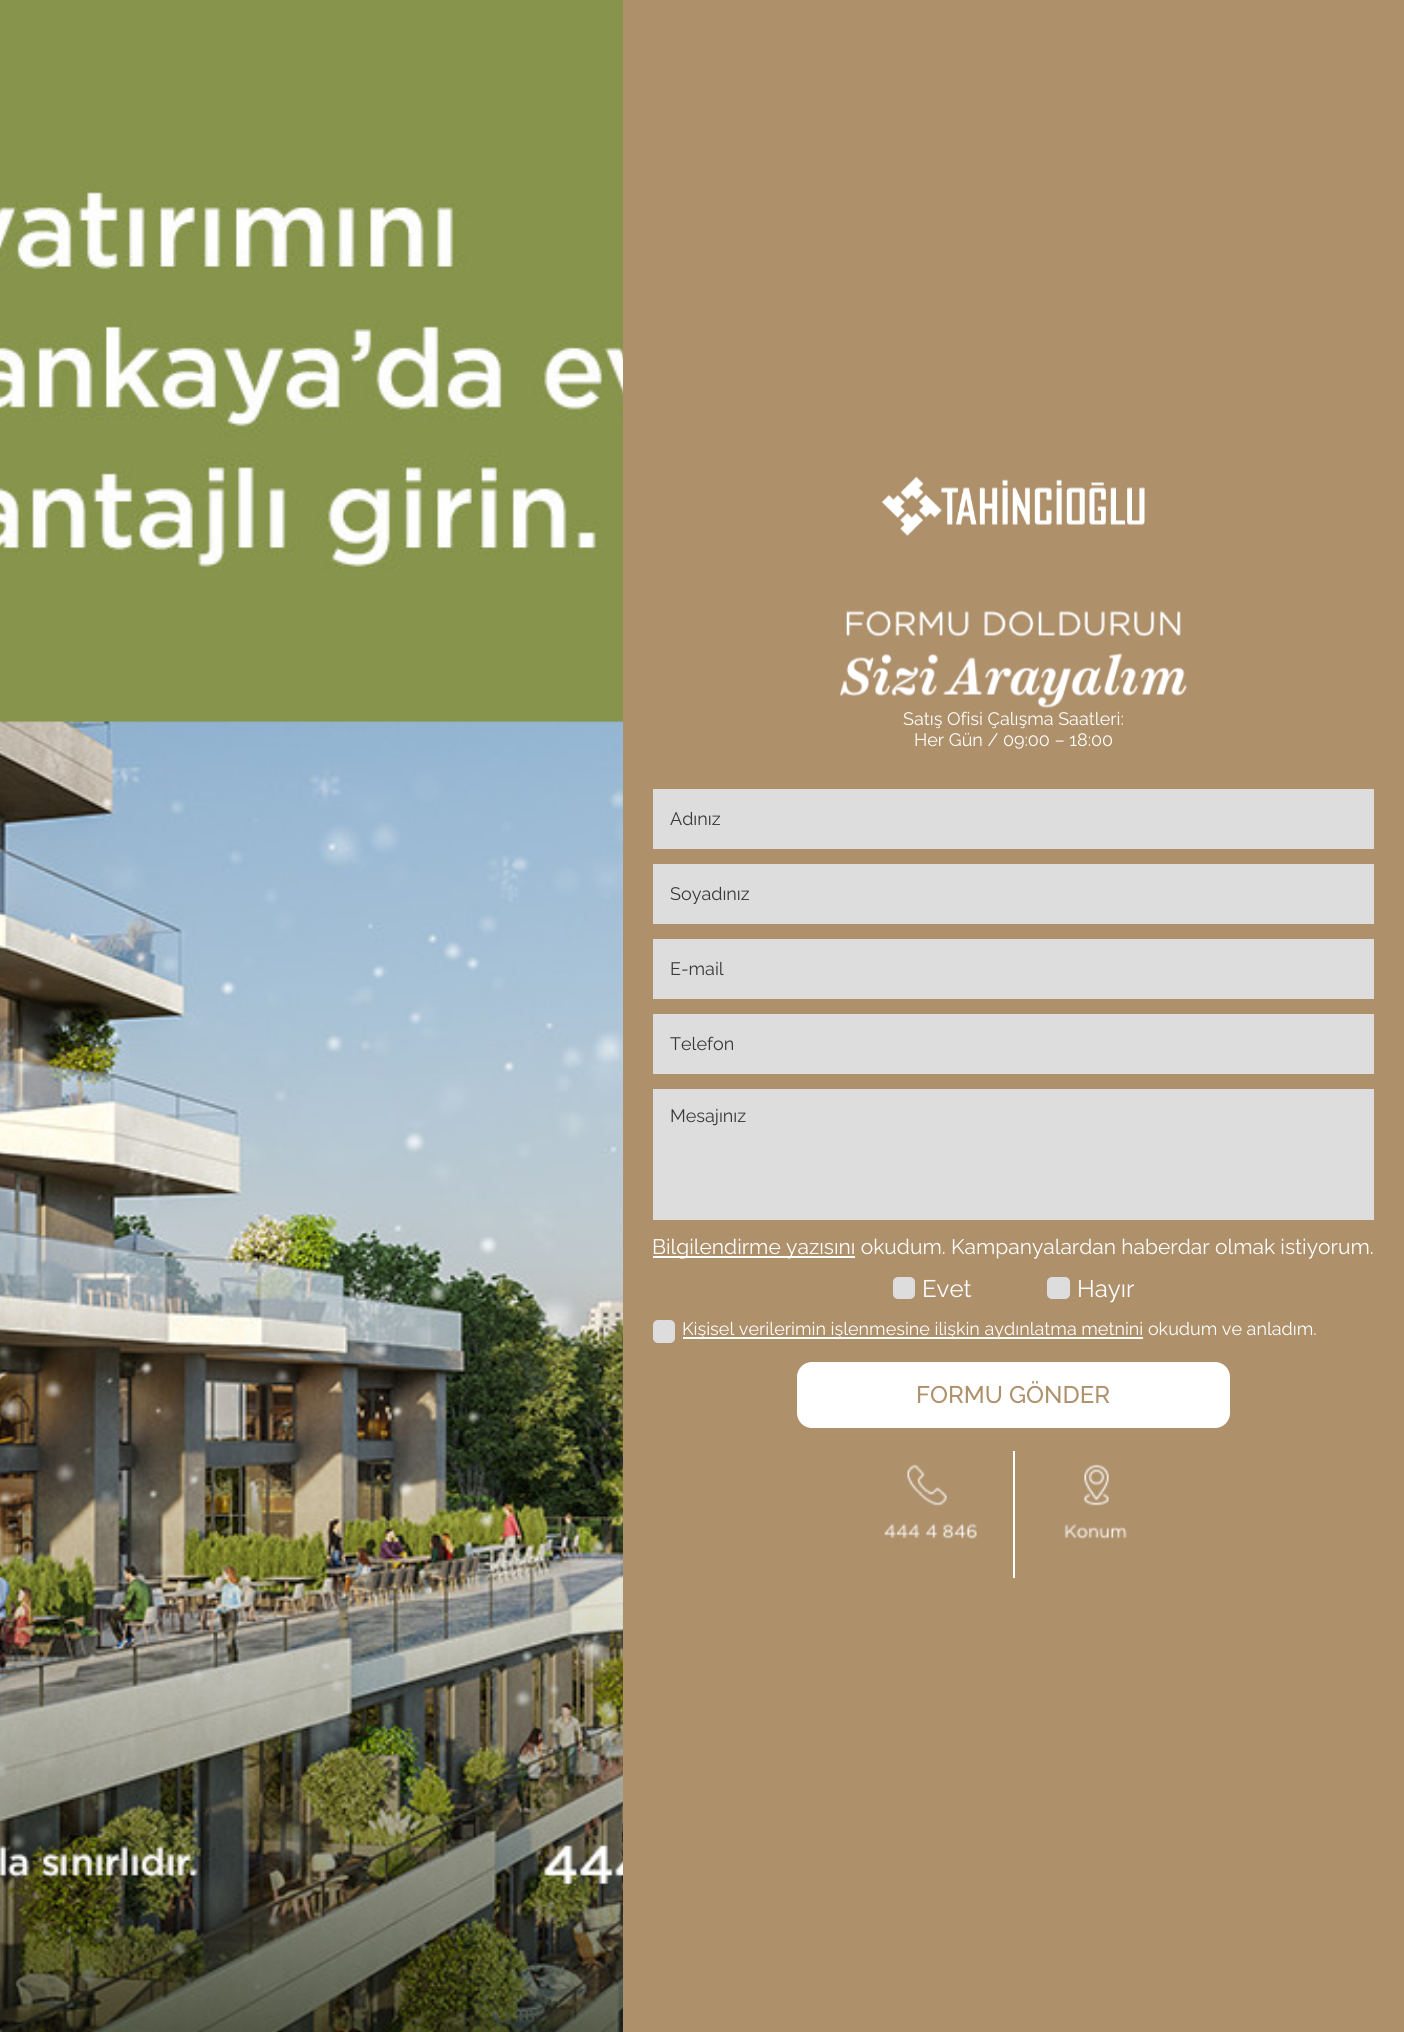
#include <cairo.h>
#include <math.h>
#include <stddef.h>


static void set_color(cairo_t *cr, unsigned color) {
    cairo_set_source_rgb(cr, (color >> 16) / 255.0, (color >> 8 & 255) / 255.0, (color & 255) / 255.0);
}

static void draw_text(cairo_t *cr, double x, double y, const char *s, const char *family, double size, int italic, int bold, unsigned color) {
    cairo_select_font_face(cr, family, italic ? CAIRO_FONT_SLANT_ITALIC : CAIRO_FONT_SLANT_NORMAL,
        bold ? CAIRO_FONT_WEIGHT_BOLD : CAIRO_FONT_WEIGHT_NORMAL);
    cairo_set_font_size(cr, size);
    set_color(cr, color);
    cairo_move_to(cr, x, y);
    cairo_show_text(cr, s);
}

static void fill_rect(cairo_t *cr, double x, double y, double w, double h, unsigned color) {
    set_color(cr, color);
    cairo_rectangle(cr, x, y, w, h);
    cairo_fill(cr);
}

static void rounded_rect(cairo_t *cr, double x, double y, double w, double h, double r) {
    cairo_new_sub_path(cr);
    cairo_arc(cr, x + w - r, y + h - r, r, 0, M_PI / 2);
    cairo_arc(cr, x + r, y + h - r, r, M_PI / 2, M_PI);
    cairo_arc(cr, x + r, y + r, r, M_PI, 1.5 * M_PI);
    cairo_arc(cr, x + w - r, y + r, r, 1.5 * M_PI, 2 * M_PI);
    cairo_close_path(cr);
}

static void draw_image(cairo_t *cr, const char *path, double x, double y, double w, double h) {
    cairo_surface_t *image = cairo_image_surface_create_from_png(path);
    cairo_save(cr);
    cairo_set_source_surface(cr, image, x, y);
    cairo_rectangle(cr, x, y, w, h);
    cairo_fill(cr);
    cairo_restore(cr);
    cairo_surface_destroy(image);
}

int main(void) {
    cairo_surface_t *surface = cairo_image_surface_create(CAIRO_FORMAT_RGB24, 1404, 2032);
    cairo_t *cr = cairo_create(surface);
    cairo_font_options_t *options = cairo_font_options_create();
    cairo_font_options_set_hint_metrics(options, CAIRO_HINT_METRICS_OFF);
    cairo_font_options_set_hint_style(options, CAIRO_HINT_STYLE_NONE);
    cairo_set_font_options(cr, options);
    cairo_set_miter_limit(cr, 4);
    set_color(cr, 0xFFFFFF);
    cairo_paint(cr);
    draw_image(cr, "assets/img1.png", 0, 0, 623, 2032);
    fill_rect(cr, 623, 0, 781, 2032, 0xAE906B);
    draw_image(cr, "assets/img2.png", 882, 476, 263, 60);
    draw_image(cr, "assets/img3.png", 840, 610, 347, 99);
    draw_text(cr, 903, 725, "Satış Ofisi Çalışma Saatleri:", "Raleway", 18, 0, 0, 0xFFFFFF);
    draw_text(cr, 914, 746, "Her Gün / 09:00 – 18:00", "Raleway", 18, 0, 0, 0xFFFFFF);
    fill_rect(cr, 653, 789, 721, 60, 0xDDDDDD);
    draw_text(cr, 670, 825, "Adınız", "Raleway", 18, 0, 0, 0x3A3838);
    fill_rect(cr, 653, 864, 721, 60, 0xDDDDDD);
    draw_text(cr, 670, 900, "Soyadınız", "Raleway", 18, 0, 0, 0x3A3838);
    fill_rect(cr, 653, 939, 721, 60, 0xDDDDDD);
    draw_text(cr, 670, 975, "E-mail", "Raleway", 18, 0, 0, 0x3A3838);
    fill_rect(cr, 653, 1014, 721, 60, 0xDDDDDD);
    draw_text(cr, 670, 1050, "Telefon", "Raleway", 18, 0, 0, 0x3A3838);
    fill_rect(cr, 653, 1089, 721, 131, 0xDDDDDD);
    draw_text(cr, 670, 1122, "Mesajınız", "Raleway", 18, 0, 0, 0x3A3838);
    fill_rect(cr, 653, 1256, 202, 2, 0xFFFFFF);
    draw_text(cr, 652, 1254, "Bilgilendirme yazısını okudum. Kampanyalardan haberdar olmak istiyorum.", "Raleway", 21, 0, 0, 0xFFFFFF);
    set_color(cr, 0xDDDDDD);
    rounded_rect(cr, 893, 1277, 22, 22, 5);
    cairo_fill(cr);
    draw_text(cr, 922, 1297, "Evet", "Raleway", 24, 0, 0, 0xFFFFFF);
    set_color(cr, 0xDDDDDD);
    rounded_rect(cr, 1047, 1277, 23, 22, 5);
    cairo_fill(cr);
    draw_text(cr, 1077, 1297, "Hayır", "Raleway", 24, 0, 0, 0xFFFFFF);
    set_color(cr, 0xDDDDDD);
    rounded_rect(cr, 653, 1320, 22, 23, 5);
    cairo_fill(cr);
    fill_rect(cr, 683, 1337, 460, 2, 0xFFFFFF);
    draw_text(cr, 682, 1335, "Kişisel verilerimin işlenmesine ilişkin aydınlatma metnini okudum ve anladım.", "Raleway", 18, 0, 0, 0xFFFFFF);
    rounded_rect(cr, 797, 1362, 433, 66, 15);
    cairo_fill(cr);
    draw_text(cr, 916, 1403, "FORMU GÖNDER", "Raleway Medium", 24, 0, 0, 0xAE906B);
    draw_image(cr, "assets/img4.png", 884, 1464, 93, 75);
    fill_rect(cr, 1013, 1451, 2, 127, 0xFFFFFF);
    draw_image(cr, "assets/img5.png", 1064, 1464, 63, 75);
    cairo_surface_write_to_png(surface, "output.png");
    cairo_font_options_destroy(options);
    cairo_destroy(cr);
    cairo_surface_destroy(surface);
    return 0;
}
